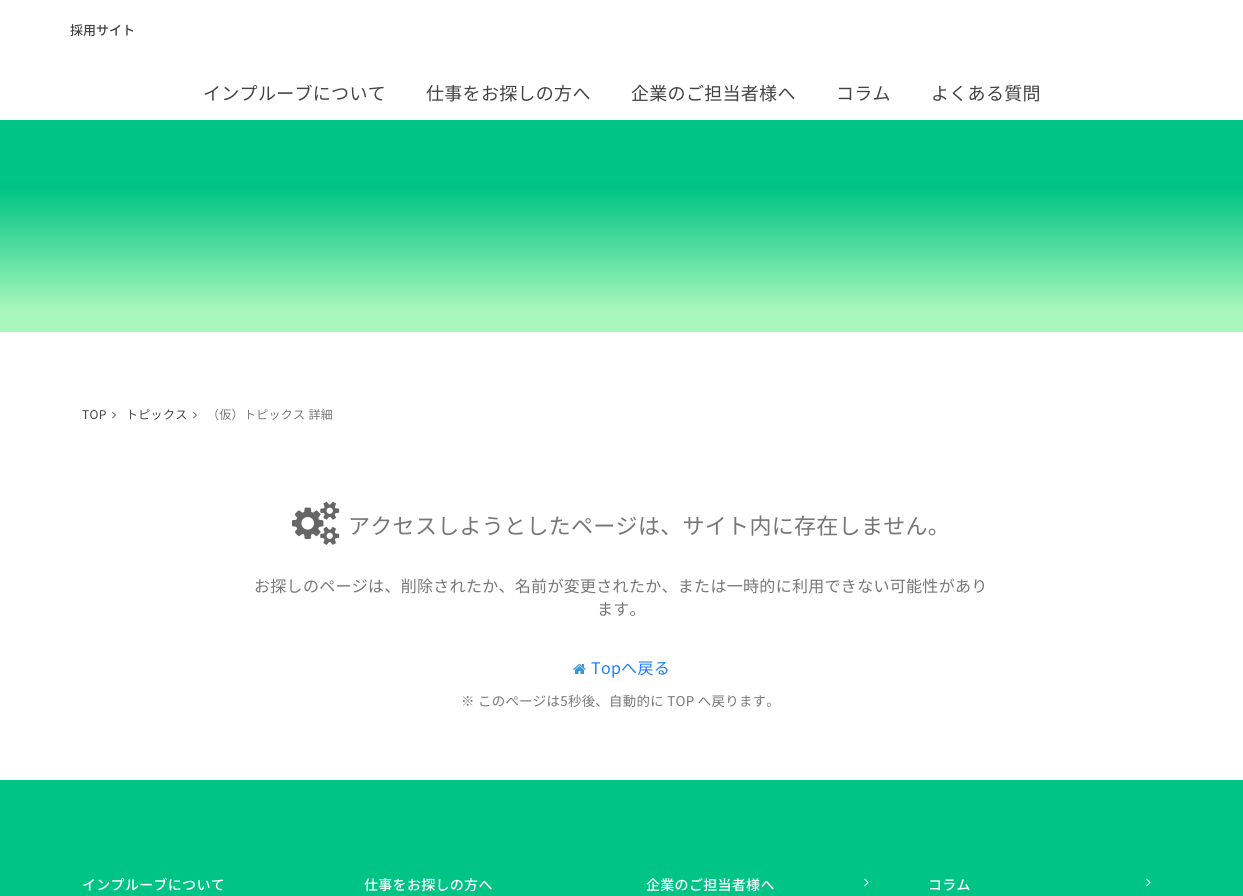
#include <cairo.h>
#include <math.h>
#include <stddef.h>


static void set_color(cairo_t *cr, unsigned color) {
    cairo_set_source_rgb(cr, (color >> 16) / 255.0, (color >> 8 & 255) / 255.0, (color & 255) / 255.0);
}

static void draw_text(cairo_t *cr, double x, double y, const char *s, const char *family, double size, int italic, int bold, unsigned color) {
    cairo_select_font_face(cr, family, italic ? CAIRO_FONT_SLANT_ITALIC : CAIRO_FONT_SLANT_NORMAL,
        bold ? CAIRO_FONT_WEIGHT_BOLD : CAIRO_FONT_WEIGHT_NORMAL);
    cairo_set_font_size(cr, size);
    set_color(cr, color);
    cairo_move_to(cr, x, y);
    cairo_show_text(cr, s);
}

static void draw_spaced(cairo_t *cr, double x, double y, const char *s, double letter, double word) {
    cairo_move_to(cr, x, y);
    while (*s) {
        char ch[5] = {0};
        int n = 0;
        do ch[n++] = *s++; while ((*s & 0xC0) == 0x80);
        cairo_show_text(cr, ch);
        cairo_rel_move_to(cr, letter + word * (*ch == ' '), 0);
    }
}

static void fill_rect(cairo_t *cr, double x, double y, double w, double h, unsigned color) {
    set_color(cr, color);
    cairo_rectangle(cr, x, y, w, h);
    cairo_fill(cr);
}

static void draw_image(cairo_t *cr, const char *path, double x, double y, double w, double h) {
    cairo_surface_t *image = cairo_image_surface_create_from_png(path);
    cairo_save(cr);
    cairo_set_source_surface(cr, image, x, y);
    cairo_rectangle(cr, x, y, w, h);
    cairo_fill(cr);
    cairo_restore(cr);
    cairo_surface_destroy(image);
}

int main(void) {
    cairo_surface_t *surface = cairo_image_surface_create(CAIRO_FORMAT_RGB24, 1243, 896);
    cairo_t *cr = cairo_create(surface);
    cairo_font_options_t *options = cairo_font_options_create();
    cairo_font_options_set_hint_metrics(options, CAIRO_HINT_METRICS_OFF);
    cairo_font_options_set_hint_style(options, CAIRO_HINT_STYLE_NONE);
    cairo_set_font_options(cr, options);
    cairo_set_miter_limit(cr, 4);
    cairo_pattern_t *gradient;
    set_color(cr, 0xFFFFFF);
    cairo_paint(cr);
    draw_text(cr, 70, 35, "採用サイト", "Noto Sans JP Medium", 13, 0, 0, 0x444444);
    cairo_select_font_face(cr, "Noto Sans JP", CAIRO_FONT_SLANT_NORMAL, CAIRO_FONT_WEIGHT_NORMAL);
    cairo_set_font_size(cr, 18);
    draw_spaced(cr, 203, 100, "インプルーブについて", 0.3, 0);
    draw_spaced(cr, 426, 100, "仕事をお探しの方へ", 0.3, 0);
    draw_spaced(cr, 631, 100, "企業のご担当者様へ", 0.3, 0);
    draw_spaced(cr, 836, 100, "コラム", 0.3, 0);
    draw_spaced(cr, 931, 100, "よくある質問", 0.3, 0);
    gradient = cairo_pattern_create_linear(622, 120, 622, 332);
    cairo_pattern_add_color_stop_rgba(gradient, 0.32, 0, 0.769, 0.518, 1);
    cairo_pattern_add_color_stop_rgba(gradient, 0.9, 0.659, 0.965, 0.733, 1);
    cairo_set_source(cr, gradient);
    cairo_pattern_destroy(gradient);
    cairo_rectangle(cr, 0, 120, 1243, 212);
    cairo_fill(cr);
    cairo_set_font_size(cr, 12);
    set_color(cr, 0x444444);
    draw_spaced(cr, 82, 419, "TOP", 0.3, 0);
    draw_image(cr, "assets/img1.png", 112, 411, 4, 8);
    draw_spaced(cr, 126, 419, "トピックス", 0.3, 0);
    draw_image(cr, "assets/img1.png", 193, 411, 4, 8);
    set_color(cr, 0x777777);
    draw_spaced(cr, 207, 419, "（仮）トピックス 詳細", 0.3, 0);
    draw_image(cr, "assets/img2.png", 292, 501, 48, 44);
    cairo_set_font_size(cr, 22);
    draw_spaced(cr, 348, 534, "アクセスしようとしたページは、サイト内に存在しません。", 0.3, 0);
    cairo_set_font_size(cr, 16);
    draw_spaced(cr, 254, 592, "お探しのページは、削除されたか、名前が変更されたか、または一時的に利用できない可能性があり", 0.3, 0);
    draw_spaced(cr, 597, 615, "ます。", 0.3, 0);
    draw_image(cr, "assets/img3.png", 573, 664, 13, 10);
    set_color(cr, 0x1F7EFF);
    draw_spaced(cr, 591, 674, "Topへ戻る", 0.3, 0);
    cairo_set_font_size(cr, 13.4);
    set_color(cr, 0x777777);
    draw_spaced(cr, 461, 706, "※ このページは5秒後、自動的に TOP へ戻ります。", 0.3, 0);
    fill_rect(cr, 0, 780, 1243, 116, 0x00C484);
    cairo_select_font_face(cr, "Noto Sans JP Medium", CAIRO_FONT_SLANT_NORMAL, CAIRO_FONT_WEIGHT_NORMAL);
    cairo_set_font_size(cr, 14);
    set_color(cr, 0xFFFFFF);
    draw_spaced(cr, 82, 890, "インプルーブについて", 0.3, 0);
    draw_spaced(cr, 364, 890, "仕事をお探しの方へ", 0.3, 0);
    draw_spaced(cr, 646, 890, "企業のご担当者様へ", 0.3, 0);
    draw_image(cr, "assets/img4.png", 864, 878, 5, 9);
    draw_spaced(cr, 928, 890, "コラム", 0.3, 0);
    draw_image(cr, "assets/img4.png", 1146, 878, 5, 9);
    cairo_surface_write_to_png(surface, "output.png");
    cairo_font_options_destroy(options);
    cairo_destroy(cr);
    cairo_surface_destroy(surface);
    return 0;
}
